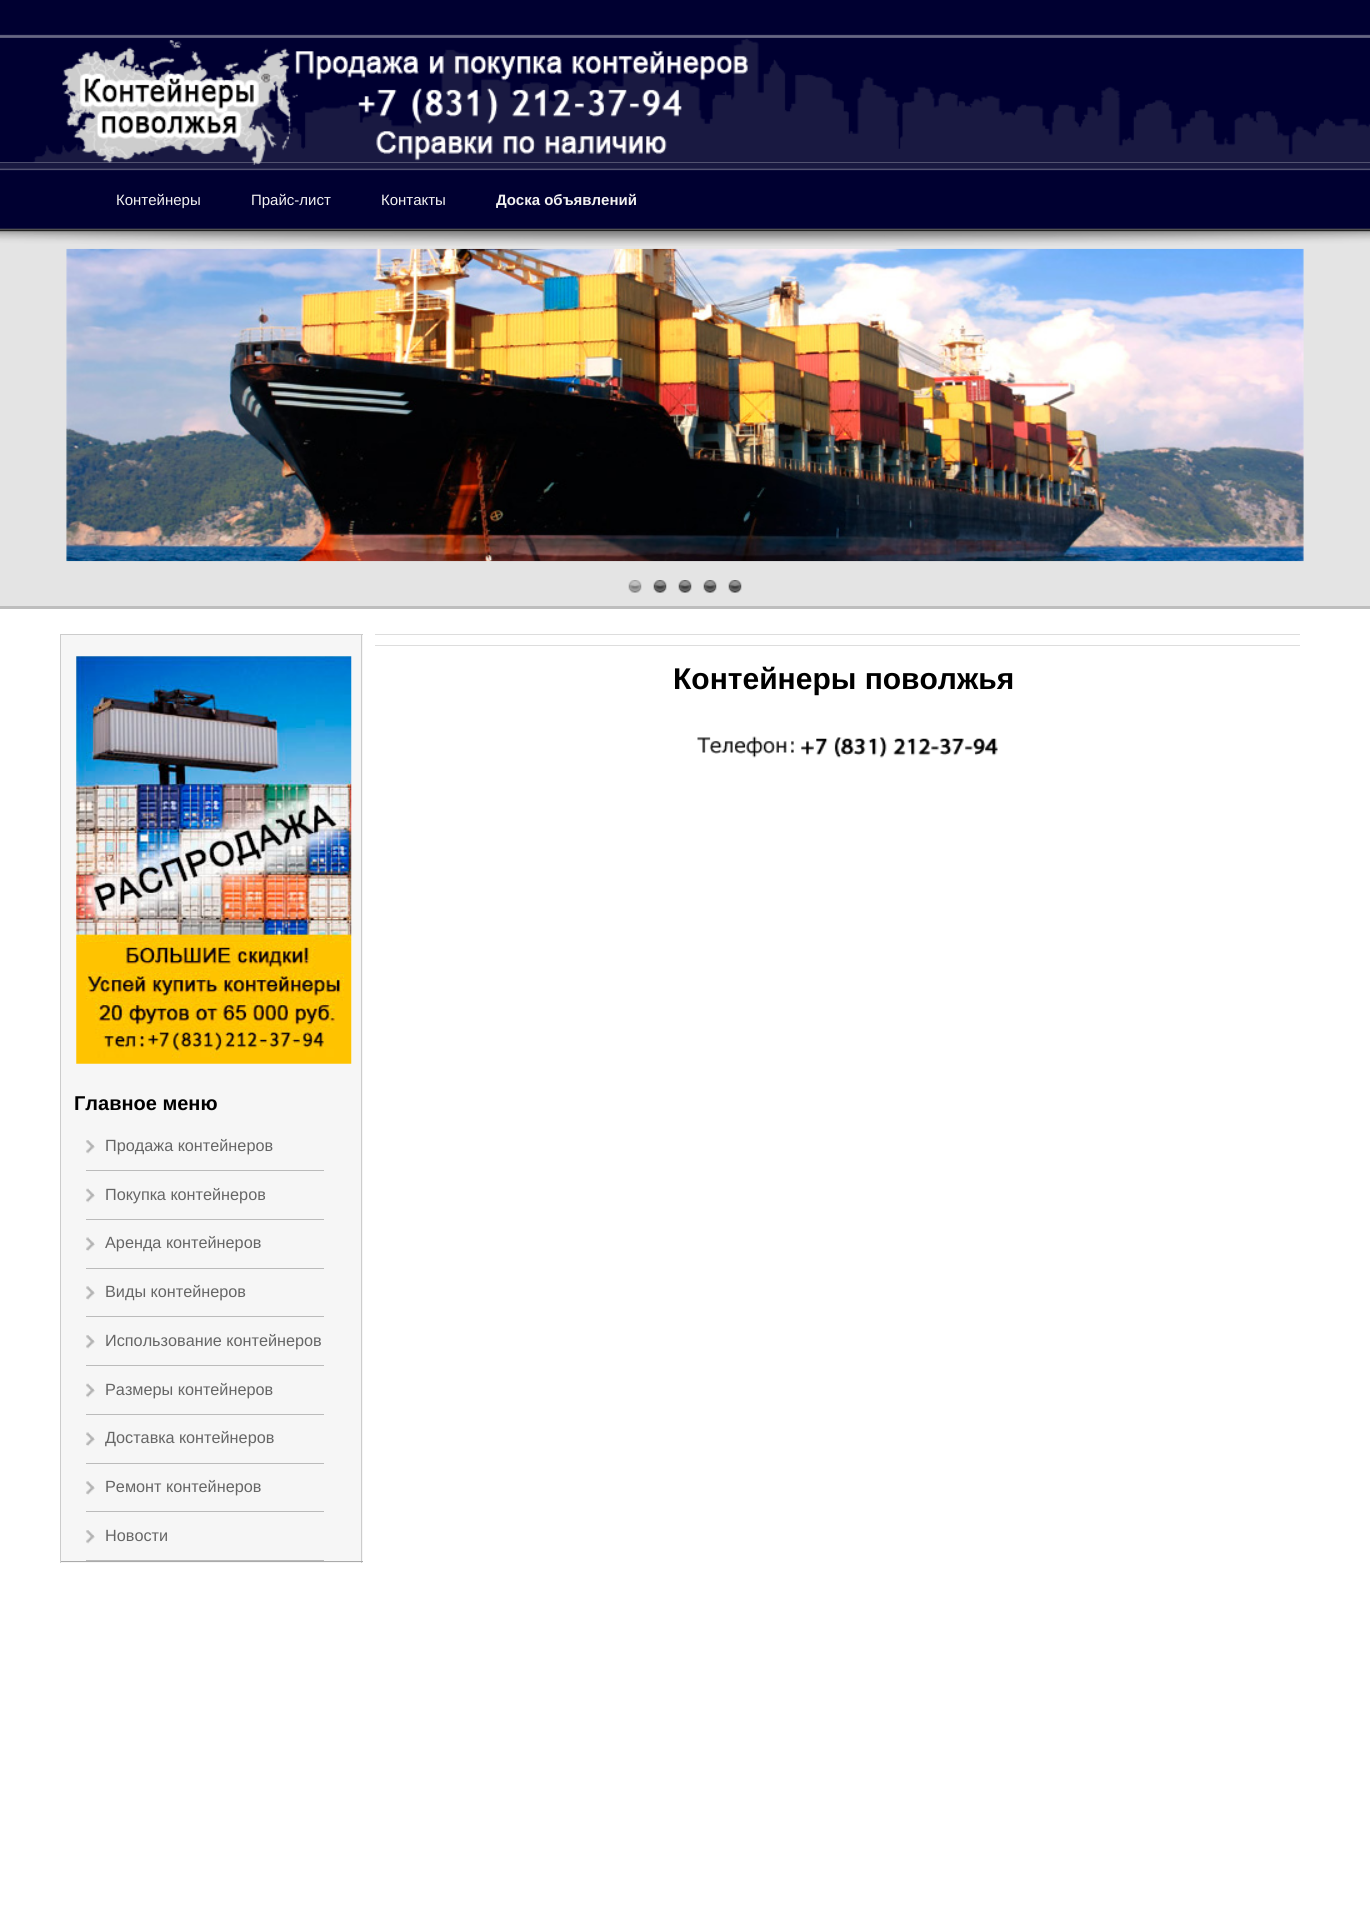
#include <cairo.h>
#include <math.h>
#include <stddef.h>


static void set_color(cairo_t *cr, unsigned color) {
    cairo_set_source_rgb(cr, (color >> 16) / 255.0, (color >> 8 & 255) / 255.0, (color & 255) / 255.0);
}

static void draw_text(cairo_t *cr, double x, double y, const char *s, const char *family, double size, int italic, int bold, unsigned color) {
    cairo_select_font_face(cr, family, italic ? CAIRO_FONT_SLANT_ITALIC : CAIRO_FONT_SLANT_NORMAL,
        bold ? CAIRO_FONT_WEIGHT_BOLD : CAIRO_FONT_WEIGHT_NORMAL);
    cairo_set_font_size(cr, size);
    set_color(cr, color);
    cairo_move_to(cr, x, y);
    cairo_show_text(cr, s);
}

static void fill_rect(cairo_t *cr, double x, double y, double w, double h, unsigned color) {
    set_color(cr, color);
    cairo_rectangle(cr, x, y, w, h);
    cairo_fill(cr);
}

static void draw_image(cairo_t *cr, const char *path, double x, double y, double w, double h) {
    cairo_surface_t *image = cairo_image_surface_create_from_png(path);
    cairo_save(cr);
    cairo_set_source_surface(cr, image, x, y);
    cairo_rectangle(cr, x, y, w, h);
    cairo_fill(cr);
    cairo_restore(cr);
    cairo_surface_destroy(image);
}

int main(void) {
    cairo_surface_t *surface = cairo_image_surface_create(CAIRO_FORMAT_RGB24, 1370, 1917);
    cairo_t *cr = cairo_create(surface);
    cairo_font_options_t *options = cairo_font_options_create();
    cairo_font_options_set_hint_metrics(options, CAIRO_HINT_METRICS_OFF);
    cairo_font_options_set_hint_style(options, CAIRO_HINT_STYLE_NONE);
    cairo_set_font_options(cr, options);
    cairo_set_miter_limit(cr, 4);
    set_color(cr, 0xFFFFFF);
    cairo_paint(cr);
    draw_image(cr, "assets/img1.png", 0, 0, 1370, 38);
    draw_image(cr, "assets/img2.png", 0, 37, 1370, 126);
    fill_rect(cr, 0, 168, 1370, 438, 0xE4E4E4);
    draw_image(cr, "assets/img4.png", 0, 231, 1370, 15);
    draw_image(cr, "assets/img5.png", 0, 162, 1370, 70);
    draw_image(cr, "assets/img3.png", 62, 40, 686, 125);
    draw_text(cr, 116, 205, "Контейнеры", "Liberation Sans", 15, 0, 0, 0xF3F2F1);
    draw_text(cr, 251, 205, "Прайс-лист", "Liberation Sans", 15, 0, 0, 0xF3F2F1);
    draw_text(cr, 381, 205, "Контакты", "Liberation Sans", 15, 0, 0, 0xF3F2F1);
    draw_text(cr, 496, 205, "Доска объявлений", "Liberation Sans", 15, 0, 1, 0xF3F2F1);
    fill_rect(cr, 0, 606, 1370, 3, 0xBEBEBE);
    draw_image(cr, "assets/img6.png", 66, 248, 1238, 314);
    draw_image(cr, "assets/img7.png", 628, 580, 14, 13);
    draw_image(cr, "assets/img8.png", 653, 580, 14, 13);
    draw_image(cr, "assets/img9.png", 678, 580, 14, 13);
    draw_image(cr, "assets/img9.png", 703, 580, 14, 13);
    draw_image(cr, "assets/img9.png", 728, 580, 14, 13);
    fill_rect(cr, 375, 634, 925, 1, 0xDDDDDD);
    fill_rect(cr, 375, 645, 925, 1, 0xDDDDDD);
    draw_text(cr, 673, 689, "Контейнеры поволжья", "Liberation Sans", 30, 0, 1, 0x000000);
    draw_image(cr, "assets/img10.png", 697, 736, 301, 22);
    fill_rect(cr, 61, 635, 302, 928, 0xF6F6F6);
    fill_rect(cr, 60, 634, 303, 1, 0xCCCCCC);
    fill_rect(cr, 361, 634, 1, 929, 0xCCCCCC);
    fill_rect(cr, 60, 1561, 303, 1, 0xAAAAAA);
    fill_rect(cr, 60, 634, 1, 929, 0xCCCCCC);
    draw_image(cr, "assets/img11.png", 76, 656, 276, 408);
    draw_text(cr, 74, 1110, "Главное меню", "Liberation Sans", 20, 0, 1, 0x000000);
    draw_image(cr, "assets/img12.png", 86, 1140, 9, 14);
    fill_rect(cr, 86, 1170, 238, 1, 0xBBBBBB);
    draw_text(cr, 105, 1151, "Продажа контейнеров", "Liberation Sans", 16.25, 0, 0, 0x666666);
    draw_image(cr, "assets/img13.png", 86, 1188, 9, 15);
    fill_rect(cr, 86, 1219, 238, 1, 0xBBBBBB);
    draw_text(cr, 105, 1200, "Покупка контейнеров", "Liberation Sans", 16.25, 0, 0, 0x666666);
    draw_image(cr, "assets/img14.png", 86, 1237, 9, 14);
    fill_rect(cr, 86, 1268, 238, 1, 0xBBBBBB);
    draw_text(cr, 105, 1248, "Аренда контейнеров", "Liberation Sans", 16.25, 0, 0, 0x666666);
    draw_image(cr, "assets/img15.png", 86, 1286, 9, 14);
    fill_rect(cr, 86, 1316, 238, 1, 0xBBBBBB);
    draw_text(cr, 105, 1297, "Виды контейнеров", "Liberation Sans", 16.25, 0, 0, 0x666666);
    draw_image(cr, "assets/img12.png", 86, 1335, 9, 14);
    fill_rect(cr, 86, 1365, 238, 1, 0xBBBBBB);
    draw_text(cr, 105, 1346, "Использование контейнеров", "Liberation Sans", 16.25, 0, 0, 0x666666);
    draw_image(cr, "assets/img13.png", 86, 1383, 9, 15);
    fill_rect(cr, 86, 1414, 238, 1, 0xBBBBBB);
    draw_text(cr, 105, 1395, "Размеры контейнеров", "Liberation Sans", 16.25, 0, 0, 0x666666);
    draw_image(cr, "assets/img14.png", 86, 1432, 9, 14);
    fill_rect(cr, 86, 1463, 238, 1, 0xBBBBBB);
    draw_text(cr, 105, 1443, "Доставка контейнеров", "Liberation Sans", 16.25, 0, 0, 0x666666);
    draw_image(cr, "assets/img15.png", 86, 1481, 9, 14);
    fill_rect(cr, 86, 1511, 238, 1, 0xBBBBBB);
    draw_text(cr, 105, 1492, "Ремонт контейнеров", "Liberation Sans", 16.25, 0, 0, 0x666666);
    draw_image(cr, "assets/img12.png", 86, 1530, 9, 14);
    fill_rect(cr, 86, 1560, 238, 1, 0xBBBBBB);
    draw_text(cr, 105, 1541, "Новости", "Liberation Sans", 16.25, 0, 0, 0x666666);
    cairo_surface_write_to_png(surface, "output.png");
    cairo_font_options_destroy(options);
    cairo_destroy(cr);
    cairo_surface_destroy(surface);
    return 0;
}
